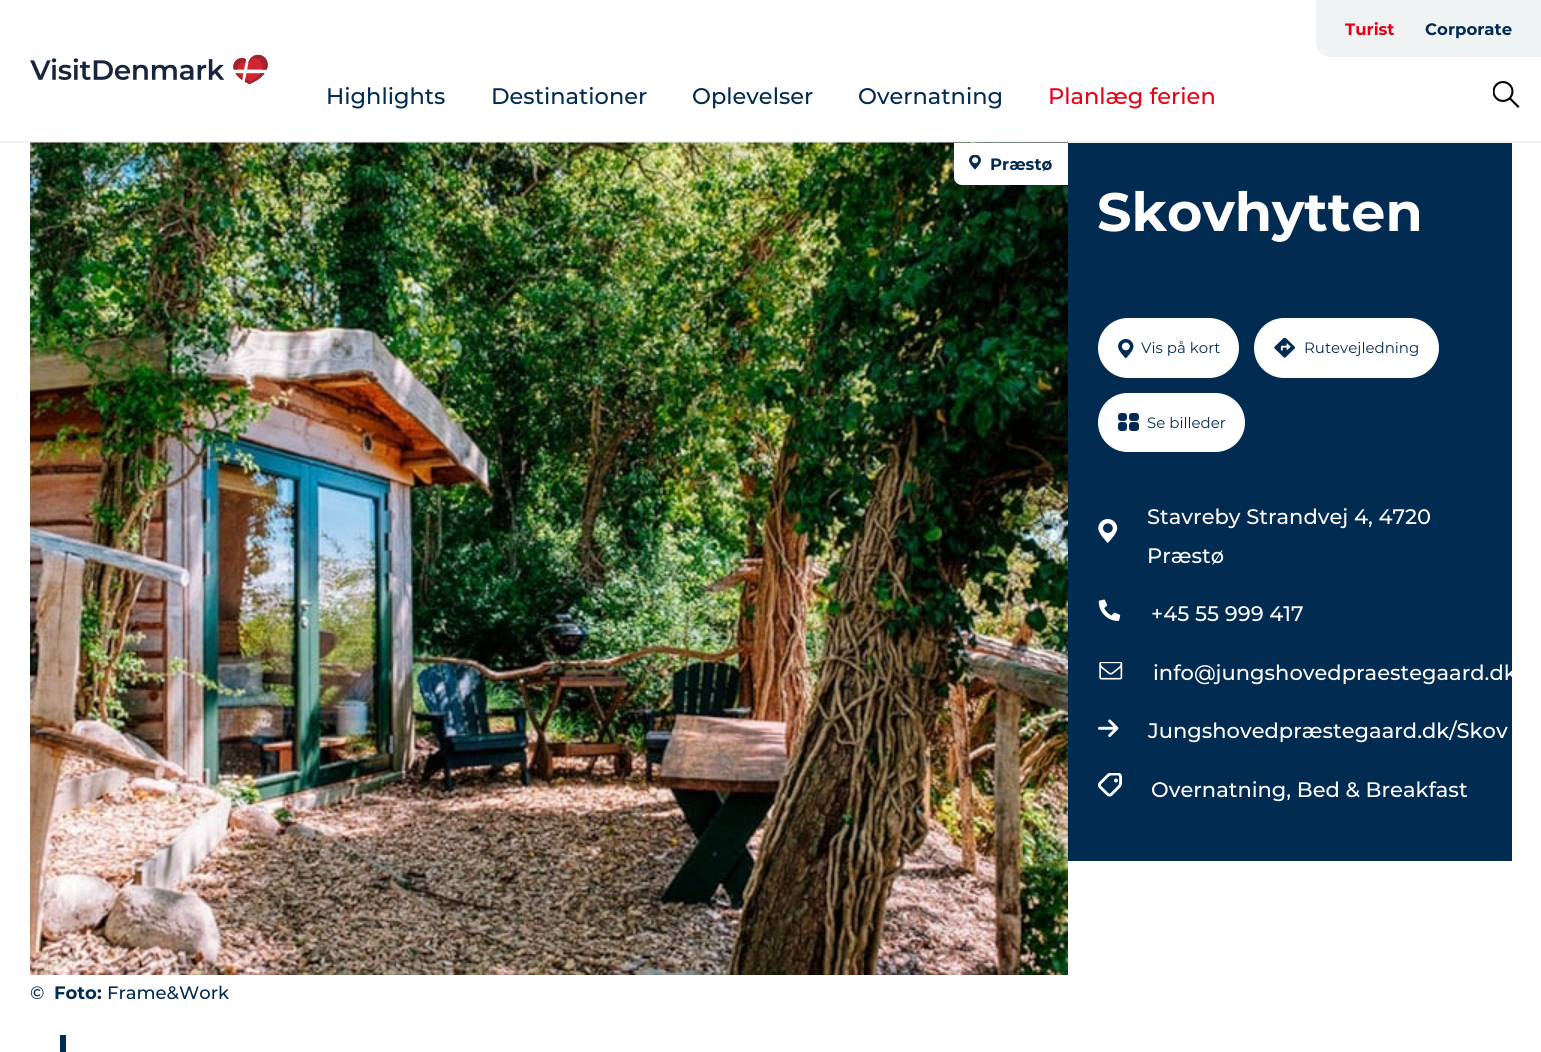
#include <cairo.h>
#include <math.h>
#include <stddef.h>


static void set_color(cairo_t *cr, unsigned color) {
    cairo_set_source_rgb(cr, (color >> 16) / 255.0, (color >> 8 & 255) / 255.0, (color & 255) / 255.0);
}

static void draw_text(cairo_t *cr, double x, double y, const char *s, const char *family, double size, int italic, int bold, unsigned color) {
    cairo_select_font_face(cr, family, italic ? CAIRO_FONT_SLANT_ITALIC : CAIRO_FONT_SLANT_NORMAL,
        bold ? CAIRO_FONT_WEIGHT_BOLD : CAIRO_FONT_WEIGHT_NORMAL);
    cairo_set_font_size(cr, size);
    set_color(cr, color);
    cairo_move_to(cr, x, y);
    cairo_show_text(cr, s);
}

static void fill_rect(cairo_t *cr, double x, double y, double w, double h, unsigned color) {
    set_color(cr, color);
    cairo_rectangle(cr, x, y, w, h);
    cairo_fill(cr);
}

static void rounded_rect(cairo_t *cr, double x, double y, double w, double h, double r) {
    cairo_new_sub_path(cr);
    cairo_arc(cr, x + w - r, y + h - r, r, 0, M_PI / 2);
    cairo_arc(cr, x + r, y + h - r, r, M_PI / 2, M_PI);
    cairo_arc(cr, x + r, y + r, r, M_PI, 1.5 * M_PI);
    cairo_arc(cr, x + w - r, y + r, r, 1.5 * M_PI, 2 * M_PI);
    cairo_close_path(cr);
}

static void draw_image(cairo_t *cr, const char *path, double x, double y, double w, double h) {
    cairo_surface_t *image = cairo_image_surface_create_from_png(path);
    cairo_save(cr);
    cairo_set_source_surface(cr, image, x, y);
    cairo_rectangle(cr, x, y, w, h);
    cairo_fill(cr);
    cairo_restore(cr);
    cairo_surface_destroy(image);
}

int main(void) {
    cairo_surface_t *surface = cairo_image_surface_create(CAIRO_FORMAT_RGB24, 1541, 1052);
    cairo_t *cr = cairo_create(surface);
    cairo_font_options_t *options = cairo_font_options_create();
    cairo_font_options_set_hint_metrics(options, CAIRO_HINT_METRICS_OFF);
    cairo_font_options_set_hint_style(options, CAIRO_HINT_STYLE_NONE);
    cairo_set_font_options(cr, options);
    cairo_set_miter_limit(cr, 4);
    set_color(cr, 0xFFFFFF);
    cairo_paint(cr);
    fill_rect(cr, 0, 141, 1541, 2, 0xF0F1F3);
    draw_image(cr, "assets/img1.png", 30, 54, 238, 30);
    set_color(cr, 0xEFF3F4);
    cairo_new_path(cr);
    cairo_move_to(cr, 1316, 0);
    cairo_line_to(cr, 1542, 0);
    cairo_line_to(cr, 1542, 57);
    cairo_line_to(cr, 1331, 57);
    cairo_curve_to(cr, 1322.5, 57, 1316, 50.5, 1316, 42);
    cairo_close_path(cr);
    cairo_fill(cr);
    draw_text(cr, 1345, 35, "Turist", "Montserrat", 16.5, 0, 1, 0xE70013);
    draw_text(cr, 1425, 35, "Corporate", "Montserrat", 16.5, 0, 1, 0x022B52);
    draw_text(cr, 326, 104, "Highlights", "Montserrat Medium", 22.5, 0, 0, 0x022B52);
    draw_text(cr, 491, 104, "Destinationer", "Montserrat Medium", 22.5, 0, 0, 0x022B52);
    draw_text(cr, 692, 104, "Oplevelser", "Montserrat Medium", 22.5, 0, 0, 0x022B52);
    draw_text(cr, 858, 104, "Overnatning", "Montserrat Medium", 22.5, 0, 0, 0x022B52);
    draw_text(cr, 1048, 104, "Planlæg ferien", "Montserrat Medium", 22.5, 0, 0, 0xE70013);
    draw_image(cr, "assets/img2.png", 1493, 81, 27, 27);
    draw_image(cr, "assets/img3.png", 30, 142, 1038, 833);
    set_color(cr, 0xFFFFFF);
    cairo_new_path(cr);
    cairo_move_to(cr, 954, 143);
    cairo_line_to(cr, 1068, 143);
    cairo_line_to(cr, 1068, 185);
    cairo_line_to(cr, 962, 185);
    cairo_curve_to(cr, 957.5, 185, 954, 181.5, 954, 177);
    cairo_close_path(cr);
    cairo_fill(cr);
    draw_image(cr, "assets/img4.png", 969, 155, 12, 15);
    draw_text(cr, 990, 170, "Præstø", "Montserrat", 16.5, 0, 1, 0x022B52);
    draw_text(cr, 30, 999, "©", "Montserrat Medium", 18, 0, 0, 0x022B52);
    draw_text(cr, 54, 999, "Foto:", "Montserrat", 18, 0, 1, 0x022B52);
    draw_text(cr, 107, 999, "Frame&Work", "Montserrat Medium", 18, 0, 0, 0x022B52);
    fill_rect(cr, 1068, 143, 444, 718, 0x022B52);
    draw_text(cr, 1097, 231, "Skovhytten", "Montserrat", 54, 0, 1, 0xFFFFFF);
    rounded_rect(cr, 1098, 318, 141, 60, 30);
    cairo_fill(cr);
    draw_image(cr, "assets/img5.png", 1118, 339, 16, 20);
    draw_text(cr, 1141, 353, "Vis på kort", "Montserrat", 15, 0, 0, 0x022B52);
    set_color(cr, 0xFFFFFF);
    rounded_rect(cr, 1254, 318, 185, 60, 30);
    cairo_fill(cr);
    draw_image(cr, "assets/img6.png", 1274, 338, 21, 20);
    draw_text(cr, 1304, 353, "Rutevejledning", "Montserrat", 15, 0, 0, 0x022B52);
    set_color(cr, 0xFFFFFF);
    rounded_rect(cr, 1098, 393, 147, 59, 29.5);
    cairo_fill(cr);
    set_color(cr, 0x022B52);
    rounded_rect(cr, 1129, 413, 10, 8, 3);
    cairo_fill(cr);
    rounded_rect(cr, 1129, 422, 10, 9, 3);
    cairo_fill(cr);
    rounded_rect(cr, 1118, 413, 9, 8, 3);
    cairo_fill(cr);
    rounded_rect(cr, 1118, 422, 9, 9, 3);
    cairo_fill(cr);
    draw_text(cr, 1147, 428, "Se billeder", "Montserrat", 15, 0, 0, 0x022B52);
    draw_image(cr, "assets/img7.png", 1098, 519, 20, 24);
    draw_text(cr, 1147, 524, "Stavreby Strandvej 4, 4720", "Montserrat Medium", 21, 0, 0, 0xFFFFFF);
    draw_text(cr, 1147, 563, "Præstø", "Montserrat Medium", 21, 0, 0, 0xFFFFFF);
    draw_image(cr, "assets/img8.png", 1098, 599, 23, 22);
    draw_text(cr, 1151, 621, "+45 55 999 417", "Montserrat Medium", 21, 0, 0, 0xFFFFFF);
    draw_image(cr, "assets/img9.png", 1099, 662, 24, 18);
    draw_text(cr, 1153, 680, "info@jungshovedpraestegaard.dk", "Montserrat Medium", 21, 0, 0, 0xFFFFFF);
    draw_image(cr, "assets/img10.png", 1098, 719, 21, 18);
    draw_text(cr, 1148, 738, "Jungshovedpræstegaard.dk/Skov", "Montserrat Medium", 21, 0, 0, 0xFFFFFF);
    draw_image(cr, "assets/img11.png", 1098, 773, 24, 24);
    draw_text(cr, 1151, 797, "Overnatning, Bed & Breakfast", "Montserrat Medium", 21, 0, 0, 0xFFFFFF);
    fill_rect(cr, 60, 1035, 6, 17, 0x022B52);
    cairo_surface_write_to_png(surface, "output.png");
    cairo_font_options_destroy(options);
    cairo_destroy(cr);
    cairo_surface_destroy(surface);
    return 0;
}
